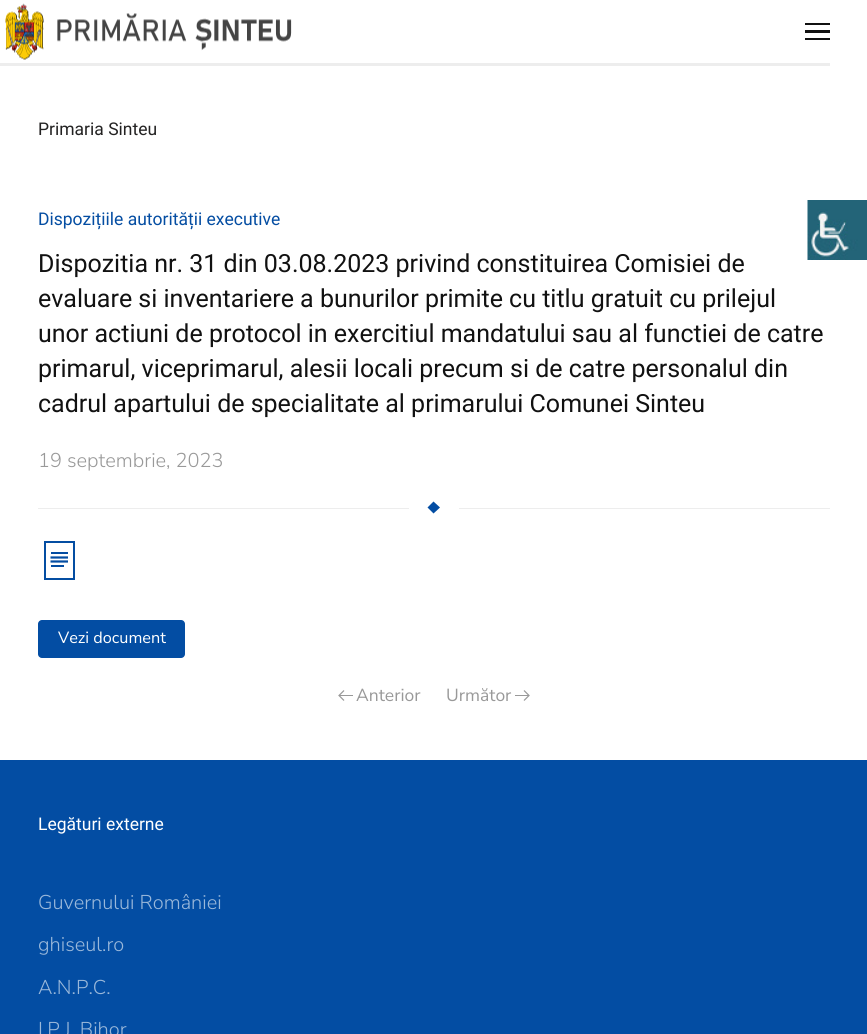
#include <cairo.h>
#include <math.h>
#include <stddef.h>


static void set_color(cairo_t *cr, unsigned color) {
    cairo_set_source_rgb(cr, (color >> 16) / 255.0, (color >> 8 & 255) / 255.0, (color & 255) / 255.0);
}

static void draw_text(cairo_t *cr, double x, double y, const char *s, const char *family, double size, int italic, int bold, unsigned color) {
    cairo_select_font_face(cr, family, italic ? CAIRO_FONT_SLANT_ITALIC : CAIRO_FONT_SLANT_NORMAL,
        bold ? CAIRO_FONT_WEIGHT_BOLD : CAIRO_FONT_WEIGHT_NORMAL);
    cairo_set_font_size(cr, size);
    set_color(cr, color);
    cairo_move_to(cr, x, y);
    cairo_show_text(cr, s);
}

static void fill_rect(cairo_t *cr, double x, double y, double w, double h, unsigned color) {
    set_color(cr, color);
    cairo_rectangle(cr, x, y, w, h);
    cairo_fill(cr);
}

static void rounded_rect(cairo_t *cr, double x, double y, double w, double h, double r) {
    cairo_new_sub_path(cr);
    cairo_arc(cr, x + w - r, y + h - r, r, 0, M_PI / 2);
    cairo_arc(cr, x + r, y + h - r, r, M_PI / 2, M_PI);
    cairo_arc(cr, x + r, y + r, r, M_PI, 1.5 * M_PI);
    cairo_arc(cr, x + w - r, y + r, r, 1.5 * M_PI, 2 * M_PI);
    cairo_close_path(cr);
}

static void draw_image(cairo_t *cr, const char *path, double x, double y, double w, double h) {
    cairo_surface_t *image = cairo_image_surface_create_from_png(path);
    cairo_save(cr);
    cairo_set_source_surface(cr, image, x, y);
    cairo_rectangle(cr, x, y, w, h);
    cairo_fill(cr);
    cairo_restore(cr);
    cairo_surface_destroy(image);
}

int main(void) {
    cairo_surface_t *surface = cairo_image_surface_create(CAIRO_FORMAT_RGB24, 867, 1034);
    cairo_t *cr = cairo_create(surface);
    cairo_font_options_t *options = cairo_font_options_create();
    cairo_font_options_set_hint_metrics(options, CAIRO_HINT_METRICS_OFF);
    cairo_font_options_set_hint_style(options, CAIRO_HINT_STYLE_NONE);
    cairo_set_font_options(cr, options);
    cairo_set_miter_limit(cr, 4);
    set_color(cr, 0xFFFFFF);
    cairo_paint(cr);
    fill_rect(cr, 0, 63, 830, 3, 0xEDEDED);
    draw_image(cr, "assets/img1.png", 5, 3, 287, 57);
    fill_rect(cr, 805, 23, 25, 2, 0x111111);
    fill_rect(cr, 805, 30, 25, 3, 0x111111);
    fill_rect(cr, 805, 38, 25, 2, 0x111111);
    draw_text(cr, 38, 135, "Primaria Sinteu", "Roboto", 17.5, 0, 0, 0x232222);
    draw_text(cr, 38, 225, "Dispozițiile autorității executive", "Roboto", 17.5, 0, 0, 0x044DA2);
    draw_text(cr, 38, 272, "Dispozitia nr. 31 din 03.08.2023 privind constituirea Comisiei de", "Roboto", 25, 0, 0, 0x111111);
    draw_text(cr, 38, 307, "evaluare si inventariere a bunurilor primite cu titlu gratuit cu prilejul", "Roboto", 25, 0, 0, 0x111111);
    draw_text(cr, 38, 342, "unor actiuni de protocol in exercitiul mandatului sau al functiei de catre", "Roboto", 25, 0, 0, 0x111111);
    draw_text(cr, 38, 377, "primarul, viceprimarul, alesii locali precum si de catre personalul din", "Roboto", 25, 0, 0, 0x111111);
    draw_text(cr, 38, 412, "cadrul apartului de specialitate al primarului Comunei Sinteu", "Roboto", 25, 0, 0, 0x111111);
    draw_text(cr, 38, 467, "19 septembrie, 2023", "Nunito Sans ExtraLight", 20, 0, 0, 0x999999);
    set_color(cr, 0x034DA3);
    cairo_new_path(cr);
    cairo_move_to(cr, 427.5, 507.5);
    cairo_line_to(cr, 433.5, 501.5);
    cairo_line_to(cr, 440, 507.5);
    cairo_line_to(cr, 433.5, 513.5);
    cairo_close_path(cr);
    cairo_fill(cr);
    fill_rect(cr, 38, 508, 371, 1, 0xEDEDED);
    fill_rect(cr, 459, 508, 371, 1, 0xEDEDED);
    cairo_rectangle(cr, 45, 542, 29, 37);
    set_color(cr, 0x044DA2);
    cairo_stroke(cr);
    fill_rect(cr, 51, 552, 17, 2, 0x044DA2);
    cairo_new_path(cr);
    cairo_move_to(cr, 50.5, 557.5);
    cairo_line_to(cr, 68, 557.5);
    cairo_set_line_width(cr, 2.2);
    cairo_stroke(cr);
    cairo_new_path(cr);
    cairo_move_to(cr, 50.5, 561.5);
    cairo_line_to(cr, 68, 561.5);
    cairo_stroke(cr);
    fill_rect(cr, 51, 565, 13, 2, 0x044DA2);
    set_color(cr, 0x034DA3);
    rounded_rect(cr, 38, 620, 147, 38, 4);
    cairo_fill(cr);
    draw_text(cr, 58, 643, "Vezi document", "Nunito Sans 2 ExtraLight", 16.25, 0, 0, 0xFFFFFF);
    cairo_new_path(cr);
    cairo_move_to(cr, 344, 700.5);
    cairo_line_to(cr, 339, 695.5);
    cairo_line_to(cr, 344, 690.5);
    set_color(cr, 0x999999);
    cairo_set_line_width(cr, 1.2);
    cairo_stroke(cr);
    fill_rect(cr, 339, 695, 14, 1, 0x999999);
    draw_text(cr, 356, 701, "Anterior", "Nunito Sans 2 ExtraLight", 17.5, 0, 0, 0x999999);
    draw_text(cr, 446, 701, "Următor", "Nunito Sans 2 ExtraLight", 17.5, 0, 0, 0x999999);
    cairo_new_path(cr);
    cairo_move_to(cr, 524, 690.5);
    cairo_line_to(cr, 529, 695.5);
    cairo_line_to(cr, 524, 700.5);
    cairo_stroke(cr);
    fill_rect(cr, 515, 695, 14, 1, 0x999999);
    fill_rect(cr, 0, 760, 867, 274, 0x034DA3);
    draw_text(cr, 38, 830, "Legături externe", "Roboto", 17.5, 0, 0, 0xFFFFFF);
    draw_text(cr, 38, 909, "Guvernului României", "Nunito Sans ExtraLight", 20, 0, 0, 0x9AB8DA);
    draw_text(cr, 38, 951, "ghiseul.ro", "Nunito Sans ExtraLight", 20, 0, 0, 0x9AB8DA);
    draw_text(cr, 38, 994, "A.N.P.C.", "Nunito Sans ExtraLight", 20, 0, 0, 0x9AB8DA);
    draw_text(cr, 38, 1036, "I.P.J. Bihor", "Nunito Sans ExtraLight", 20, 0, 0, 0x9AB8DA);
    draw_image(cr, "assets/img2.png", 807, 200, 60, 60);
    cairo_surface_write_to_png(surface, "output.png");
    cairo_font_options_destroy(options);
    cairo_destroy(cr);
    cairo_surface_destroy(surface);
    return 0;
}
